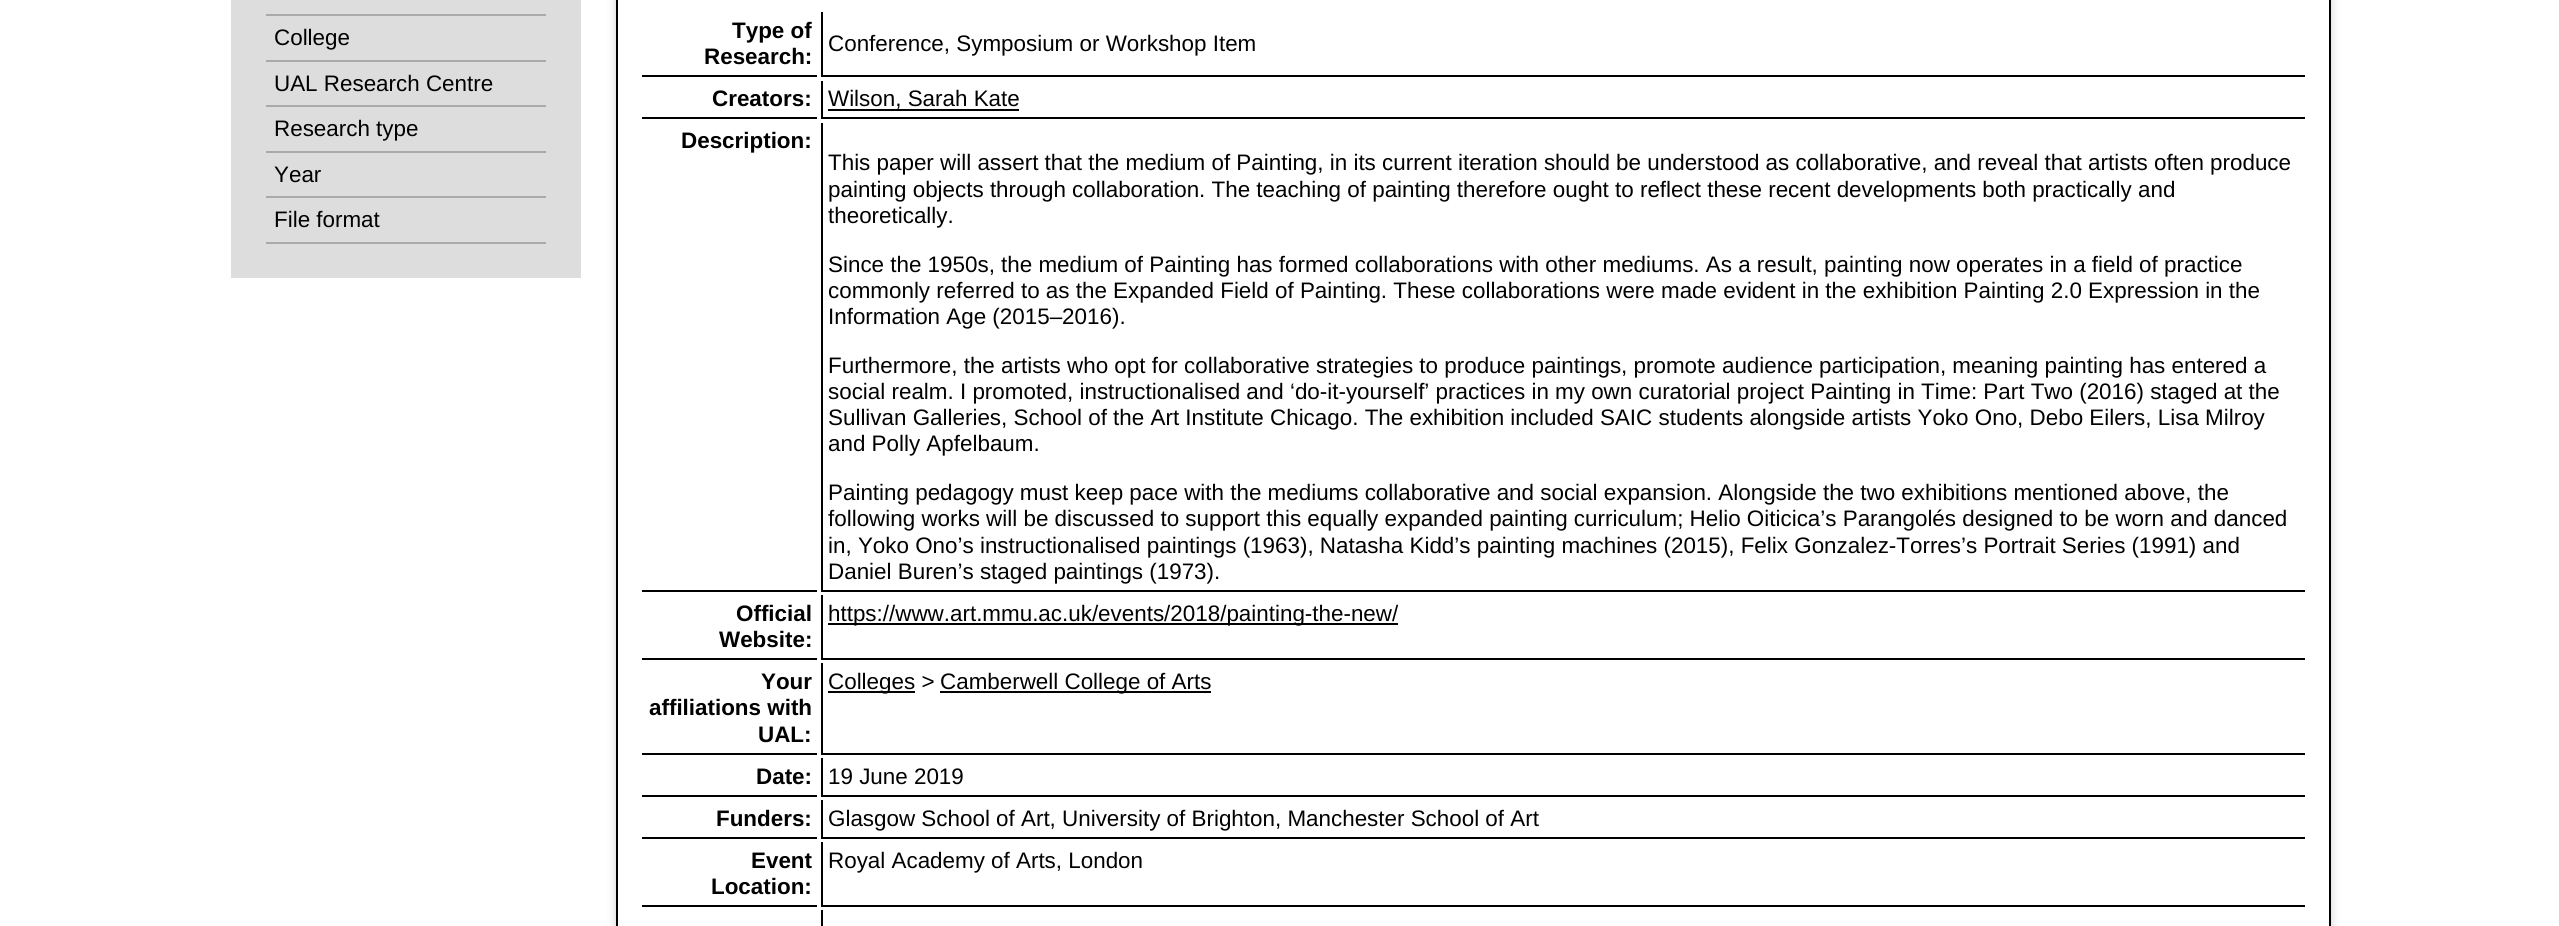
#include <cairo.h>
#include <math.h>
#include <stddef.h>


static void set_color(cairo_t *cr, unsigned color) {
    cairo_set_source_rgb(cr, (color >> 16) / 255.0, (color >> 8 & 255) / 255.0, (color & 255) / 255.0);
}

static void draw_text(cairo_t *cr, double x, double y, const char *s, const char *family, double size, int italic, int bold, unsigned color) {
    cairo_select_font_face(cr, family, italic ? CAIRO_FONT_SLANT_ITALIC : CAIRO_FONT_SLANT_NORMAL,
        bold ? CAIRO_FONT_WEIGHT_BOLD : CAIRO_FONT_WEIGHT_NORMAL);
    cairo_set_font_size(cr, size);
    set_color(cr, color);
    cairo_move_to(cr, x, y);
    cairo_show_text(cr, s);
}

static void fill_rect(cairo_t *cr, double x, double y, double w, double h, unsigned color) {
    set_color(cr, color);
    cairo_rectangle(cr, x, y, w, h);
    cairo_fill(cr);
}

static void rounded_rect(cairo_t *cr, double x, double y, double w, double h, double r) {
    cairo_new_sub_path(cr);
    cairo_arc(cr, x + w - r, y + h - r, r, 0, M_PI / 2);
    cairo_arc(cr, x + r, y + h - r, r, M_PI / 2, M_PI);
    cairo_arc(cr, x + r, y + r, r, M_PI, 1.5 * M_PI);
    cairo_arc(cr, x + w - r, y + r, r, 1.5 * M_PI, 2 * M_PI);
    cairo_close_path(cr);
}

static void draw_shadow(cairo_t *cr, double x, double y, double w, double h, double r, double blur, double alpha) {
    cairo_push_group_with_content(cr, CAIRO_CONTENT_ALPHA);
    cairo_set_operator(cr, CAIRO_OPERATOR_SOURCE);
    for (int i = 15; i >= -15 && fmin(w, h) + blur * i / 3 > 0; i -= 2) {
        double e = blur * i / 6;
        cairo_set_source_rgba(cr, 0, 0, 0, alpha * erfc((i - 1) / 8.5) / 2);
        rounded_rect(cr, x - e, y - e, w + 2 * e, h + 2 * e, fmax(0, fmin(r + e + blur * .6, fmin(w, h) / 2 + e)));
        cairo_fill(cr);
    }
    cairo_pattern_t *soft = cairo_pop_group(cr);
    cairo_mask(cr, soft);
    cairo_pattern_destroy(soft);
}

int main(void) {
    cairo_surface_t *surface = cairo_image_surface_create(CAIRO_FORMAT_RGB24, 2559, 926);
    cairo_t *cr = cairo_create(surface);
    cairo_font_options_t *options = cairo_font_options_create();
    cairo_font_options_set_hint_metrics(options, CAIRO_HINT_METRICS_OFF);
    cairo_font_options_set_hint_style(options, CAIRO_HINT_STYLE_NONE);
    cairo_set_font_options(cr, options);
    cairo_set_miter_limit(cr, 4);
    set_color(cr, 0xFFFFFF);
    cairo_paint(cr);
    fill_rect(cr, 231, 0, 350, 278, 0xDDDDDD);
    fill_rect(cr, 266, 14, 280, 2, 0xAAAAAA);
    fill_rect(cr, 266, 60, 280, 2, 0xAAAAAA);
    draw_text(cr, 274, 45, "College", "Liberation Sans", 22.4, 0, 0, 0x000000);
    fill_rect(cr, 266, 105, 280, 2, 0xAAAAAA);
    draw_text(cr, 274, 91, "UAL Research Centre", "Liberation Sans", 22.4, 0, 0, 0x000000);
    fill_rect(cr, 266, 151, 280, 2, 0xAAAAAA);
    draw_text(cr, 274, 136, "Research type", "Liberation Sans", 22.4, 0, 0, 0x000000);
    fill_rect(cr, 266, 196, 280, 2, 0xAAAAAA);
    draw_text(cr, 274, 182, "Year", "Liberation Sans", 22.4, 0, 0, 0x000000);
    fill_rect(cr, 266, 242, 280, 2, 0xAAAAAA);
    draw_text(cr, 274, 227, "File format", "Liberation Sans", 22.4, 0, 0, 0x000000);
    cairo_save(cr);
    cairo_set_fill_rule(cr, CAIRO_FILL_RULE_EVEN_ODD);
    cairo_new_path(cr);
    cairo_move_to(cr, 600, 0);
    cairo_line_to(cr, 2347, 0);
    cairo_line_to(cr, 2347, 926);
    cairo_line_to(cr, 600, 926);
    cairo_close_path(cr);
    cairo_move_to(cr, 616, -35);
    cairo_line_to(cr, 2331, -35);
    cairo_line_to(cr, 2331, 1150);
    cairo_line_to(cr, 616, 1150);
    cairo_close_path(cr);
    cairo_clip(cr);
    set_color(cr, 0x646464);
    draw_shadow(cr, 616, -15, 1715, 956, 0, 5, 0.3);
    cairo_restore(cr);
    fill_rect(cr, 2329, 0, 2, 926, 0x000000);
    fill_rect(cr, 616, 0, 2, 926, 0x000000);
    fill_rect(cr, 642, 75, 175, 2, 0x000000);
    draw_text(cr, 732, 38, "Type of", "Liberation Sans", 22.4, 0, 1, 0x000000);
    draw_text(cr, 704, 64, "Research:", "Liberation Sans", 22.4, 0, 1, 0x000000);
    fill_rect(cr, 821, 75, 1484, 2, 0x000000);
    fill_rect(cr, 821, 12, 2, 65, 0x000000);
    draw_text(cr, 828, 51, "Conference, Symposium or Workshop Item", "Liberation Sans", 22.4, 0, 0, 0x000000);
    fill_rect(cr, 642, 117, 175, 2, 0x000000);
    draw_text(cr, 712, 106, "Creators:", "Liberation Sans", 22.4, 0, 1, 0x000000);
    fill_rect(cr, 821, 117, 1484, 2, 0x000000);
    fill_rect(cr, 821, 81, 2, 38, 0x000000);
    draw_text(cr, 828, 106, "Wilson, Sarah Kate", "Liberation Sans", 22.4, 0, 0, 0x000000);
    fill_rect(cr, 828, 109, 191, 2, 0x000000);
    fill_rect(cr, 642, 590, 175, 2, 0x000000);
    draw_text(cr, 681, 148, "Description:", "Liberation Sans", 22.4, 0, 1, 0x000000);
    fill_rect(cr, 821, 590, 1484, 2, 0x000000);
    fill_rect(cr, 821, 123, 2, 469, 0x000000);
    draw_text(cr, 828, 170, "This paper will assert that the medium of Painting, in its current iteration should be understood as collaborative, and reveal that artists often produce", "Liberation Sans", 22.4, 0, 0, 0x000000);
    draw_text(cr, 828, 197, "painting objects through collaboration. The teaching of painting therefore ought to reflect these recent developments both practically and", "Liberation Sans", 22.4, 0, 0, 0x000000);
    draw_text(cr, 828, 223, "theoretically.", "Liberation Sans", 22.4, 0, 0, 0x000000);
    draw_text(cr, 828, 272, "Since the 1950s, the medium of Painting has formed collaborations with other mediums. As a result, painting now operates in a field of practice", "Liberation Sans", 22.4, 0, 0, 0x000000);
    draw_text(cr, 828, 298, "commonly referred to as the Expanded Field of Painting. These collaborations were made evident in the exhibition Painting 2.0 Expression in the", "Liberation Sans", 22.4, 0, 0, 0x000000);
    draw_text(cr, 828, 324, "Information Age (2015–2016).", "Liberation Sans", 22.4, 0, 0, 0x000000);
    draw_text(cr, 828, 373, "Furthermore, the artists who opt for collaborative strategies to produce paintings, promote audience participation, meaning painting has entered a", "Liberation Sans", 22.4, 0, 0, 0x000000);
    draw_text(cr, 828, 399, "social realm. I promoted, instructionalised and ‘do-it-yourself’ practices in my own curatorial project Painting in Time: Part Two (2016) staged at the", "Liberation Sans", 22.4, 0, 0, 0x000000);
    draw_text(cr, 828, 425, "Sullivan Galleries, School of the Art Institute Chicago. The exhibition included SAIC students alongside artists Yoko Ono, Debo Eilers, Lisa Milroy", "Liberation Sans", 22.4, 0, 0, 0x000000);
    draw_text(cr, 828, 451, "and Polly Apfelbaum.", "Liberation Sans", 22.4, 0, 0, 0x000000);
    draw_text(cr, 828, 500, "Painting pedagogy must keep pace with the mediums collaborative and social expansion. Alongside the two exhibitions mentioned above, the", "Liberation Sans", 22.4, 0, 0, 0x000000);
    draw_text(cr, 828, 526, "following works will be discussed to support this equally expanded painting curriculum; Helio Oiticica’s Parangolés designed to be worn and danced", "Liberation Sans", 22.4, 0, 0, 0x000000);
    draw_text(cr, 828, 553, "in, Yoko Ono’s instructionalised paintings (1963), Natasha Kidd’s painting machines (2015), Felix Gonzalez-Torres’s Portrait Series (1991) and", "Liberation Sans", 22.4, 0, 0, 0x000000);
    draw_text(cr, 828, 579, "Daniel Buren’s staged paintings (1973).", "Liberation Sans", 22.4, 0, 0, 0x000000);
    fill_rect(cr, 642, 658, 175, 2, 0x000000);
    draw_text(cr, 736, 621, "Official", "Liberation Sans", 22.4, 0, 1, 0x000000);
    draw_text(cr, 719, 647, "Website:", "Liberation Sans", 22.4, 0, 1, 0x000000);
    fill_rect(cr, 821, 658, 1484, 2, 0x000000);
    fill_rect(cr, 821, 595, 2, 65, 0x000000);
    fill_rect(cr, 828, 623, 570, 2, 0x000000);
    draw_text(cr, 828, 621, "https://www.art.mmu.ac.uk/events/2018/painting-the-new/", "Liberation Sans", 22.4, 0, 0, 0x000000);
    fill_rect(cr, 642, 753, 175, 2, 0x000000);
    draw_text(cr, 761, 689, "Your", "Liberation Sans", 22.4, 0, 1, 0x000000);
    draw_text(cr, 649, 715, "affiliations with", "Liberation Sans", 22.4, 0, 1, 0x000000);
    draw_text(cr, 758, 742, "UAL:", "Liberation Sans", 22.4, 0, 1, 0x000000);
    fill_rect(cr, 821, 753, 1484, 2, 0x000000);
    fill_rect(cr, 821, 663, 2, 91, 0x000000);
    fill_rect(cr, 828, 691, 87, 2, 0x000000);
    draw_text(cr, 828, 689, "Colleges >", "Liberation Sans", 22.4, 0, 0, 0x000000);
    fill_rect(cr, 940, 691, 271, 2, 0x000000);
    draw_text(cr, 940, 689, "Camberwell College of Arts", "Liberation Sans", 22.4, 0, 0, 0x000000);
    fill_rect(cr, 642, 795, 175, 2, 0x000000);
    draw_text(cr, 756, 784, "Date:", "Liberation Sans", 22.4, 0, 1, 0x000000);
    fill_rect(cr, 821, 795, 1484, 2, 0x000000);
    fill_rect(cr, 821, 758, 2, 38, 0x000000);
    draw_text(cr, 828, 784, "19 June 2019", "Liberation Sans", 22.4, 0, 0, 0x000000);
    fill_rect(cr, 642, 837, 175, 2, 0x000000);
    draw_text(cr, 716, 826, "Funders:", "Liberation Sans", 22.4, 0, 1, 0x000000);
    fill_rect(cr, 821, 837, 1484, 2, 0x000000);
    fill_rect(cr, 821, 800, 2, 38, 0x000000);
    draw_text(cr, 828, 826, "Glasgow School of Art, University of Brighton, Manchester School of Art", "Liberation Sans", 22.4, 0, 0, 0x000000);
    fill_rect(cr, 642, 905, 175, 2, 0x000000);
    draw_text(cr, 751, 868, "Event", "Liberation Sans", 22.4, 0, 1, 0x000000);
    draw_text(cr, 711, 894, "Location:", "Liberation Sans", 22.4, 0, 1, 0x000000);
    fill_rect(cr, 821, 905, 1484, 2, 0x000000);
    fill_rect(cr, 821, 842, 2, 65, 0x000000);
    draw_text(cr, 828, 868, "Royal Academy of Arts, London", "Liberation Sans", 22.4, 0, 0, 0x000000);
    fill_rect(cr, 821, 910, 2, 16, 0x000000);
    cairo_surface_write_to_png(surface, "output.png");
    cairo_font_options_destroy(options);
    cairo_destroy(cr);
    cairo_surface_destroy(surface);
    return 0;
}
